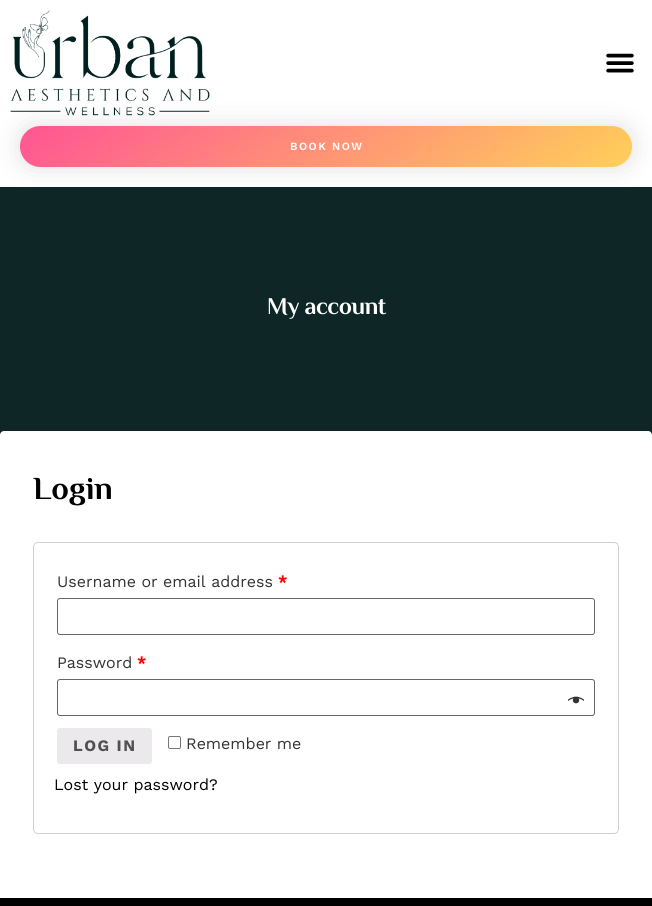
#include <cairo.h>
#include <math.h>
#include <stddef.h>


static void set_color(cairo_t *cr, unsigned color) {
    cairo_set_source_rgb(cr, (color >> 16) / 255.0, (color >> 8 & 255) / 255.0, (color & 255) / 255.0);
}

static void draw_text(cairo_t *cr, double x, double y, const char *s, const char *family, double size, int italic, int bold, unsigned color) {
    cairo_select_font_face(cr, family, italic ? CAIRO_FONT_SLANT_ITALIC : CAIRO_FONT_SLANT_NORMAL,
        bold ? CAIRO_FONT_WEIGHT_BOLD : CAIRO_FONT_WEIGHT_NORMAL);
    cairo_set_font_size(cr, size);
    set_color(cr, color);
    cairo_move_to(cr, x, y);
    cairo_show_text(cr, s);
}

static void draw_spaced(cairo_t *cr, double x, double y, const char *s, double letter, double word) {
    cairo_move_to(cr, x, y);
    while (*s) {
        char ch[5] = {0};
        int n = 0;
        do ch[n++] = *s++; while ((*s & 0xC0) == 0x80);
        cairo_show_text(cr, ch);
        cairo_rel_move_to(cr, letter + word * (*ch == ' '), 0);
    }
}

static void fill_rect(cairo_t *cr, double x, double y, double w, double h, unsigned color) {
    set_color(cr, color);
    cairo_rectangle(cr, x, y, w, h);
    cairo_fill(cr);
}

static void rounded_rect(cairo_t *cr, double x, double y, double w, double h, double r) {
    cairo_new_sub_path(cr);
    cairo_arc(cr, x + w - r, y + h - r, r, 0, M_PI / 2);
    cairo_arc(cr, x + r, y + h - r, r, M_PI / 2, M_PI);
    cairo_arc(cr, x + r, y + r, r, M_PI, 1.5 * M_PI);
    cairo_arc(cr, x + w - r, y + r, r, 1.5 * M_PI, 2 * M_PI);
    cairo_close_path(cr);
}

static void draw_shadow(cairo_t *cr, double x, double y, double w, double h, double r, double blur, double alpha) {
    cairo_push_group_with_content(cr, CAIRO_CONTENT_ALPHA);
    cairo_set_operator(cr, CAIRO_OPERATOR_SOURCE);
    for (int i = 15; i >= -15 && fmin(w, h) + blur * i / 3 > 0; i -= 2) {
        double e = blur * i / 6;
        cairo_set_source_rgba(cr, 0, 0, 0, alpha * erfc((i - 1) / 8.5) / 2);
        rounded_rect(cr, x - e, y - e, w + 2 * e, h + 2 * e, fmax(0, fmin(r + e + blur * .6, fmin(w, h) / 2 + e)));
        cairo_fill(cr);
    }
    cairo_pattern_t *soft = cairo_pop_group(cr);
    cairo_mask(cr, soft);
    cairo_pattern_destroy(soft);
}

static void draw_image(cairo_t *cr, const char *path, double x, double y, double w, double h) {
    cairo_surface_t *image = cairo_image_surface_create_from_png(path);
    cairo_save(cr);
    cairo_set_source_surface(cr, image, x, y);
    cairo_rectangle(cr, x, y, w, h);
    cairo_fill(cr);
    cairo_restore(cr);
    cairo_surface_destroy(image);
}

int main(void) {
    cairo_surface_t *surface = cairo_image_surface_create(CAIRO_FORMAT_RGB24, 652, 906);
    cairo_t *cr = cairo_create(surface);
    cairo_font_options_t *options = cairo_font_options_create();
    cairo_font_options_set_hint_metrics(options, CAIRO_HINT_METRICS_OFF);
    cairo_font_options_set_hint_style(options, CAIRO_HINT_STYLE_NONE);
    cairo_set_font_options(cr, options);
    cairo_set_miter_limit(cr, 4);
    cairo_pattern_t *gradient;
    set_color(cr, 0xFFFFFF);
    cairo_paint(cr);
    draw_image(cr, "assets/img1.png", 10, 10, 200, 106);
    draw_image(cr, "assets/img2.png", 606, 53, 28, 20);
    fill_rect(cr, 0, 187, 652, 248, 0x0E2625);
    set_color(cr, 0x000000);
    draw_shadow(cr, 20, 126, 612, 41, 20.5, 13.5, 0.12);
    gradient = cairo_pattern_create_linear(211, -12, 441, 305);
    cairo_pattern_add_color_stop_rgba(gradient, 0, 1, 0.329, 0.58, 1);
    cairo_pattern_add_color_stop_rgba(gradient, 1, 1, 0.816, 0.349, 1);
    cairo_set_source(cr, gradient);
    cairo_pattern_destroy(gradient);
    rounded_rect(cr, 20, 126, 612, 41, 20.5);
    cairo_fill(cr);
    cairo_select_font_face(cr, "Work Sans SemiBold", CAIRO_FONT_SLANT_NORMAL, CAIRO_FONT_WEIGHT_NORMAL);
    cairo_set_font_size(cr, 11);
    set_color(cr, 0xFFFFFF);
    draw_spaced(cr, 290, 150, "BOOK NOW", 1.5, 0);
    cairo_select_font_face(cr, "El Messiri", CAIRO_FONT_SLANT_NORMAL, CAIRO_FONT_WEIGHT_BOLD);
    cairo_set_font_size(cr, 24);
    draw_spaced(cr, 267, 314, "My account", -0.5, 0);
    rounded_rect(cr, 0, 431, 652, 467, 4);
    cairo_fill(cr);
    draw_text(cr, 33, 499, "Login", "El Messiri", 32, 0, 1, 0x000000);
    rounded_rect(cr, 33.5, 542.5, 585, 291, 4.5);
    set_color(cr, 0xD3CED2);
    cairo_set_line_width(cr, 1);
    cairo_stroke(cr);
    draw_text(cr, 57, 587, "Username or email address", "Work Sans", 16, 0, 0, 0x333333);
    draw_text(cr, 278, 587, "*", "Work Sans", 16, 0, 1, 0xFF0000);
    rounded_rect(cr, 57.5, 598.5, 537, 36, 2.5);
    set_color(cr, 0x666666);
    cairo_stroke(cr);
    draw_text(cr, 57, 668, "Password", "Work Sans", 16, 0, 0, 0x333333);
    draw_text(cr, 137, 668, "*", "Work Sans", 16, 0, 1, 0xFF0000);
    rounded_rect(cr, 57.5, 679.5, 537, 36, 2.5);
    set_color(cr, 0x666666);
    cairo_stroke(cr);
    draw_image(cr, "assets/img3.png", 568, 696, 16, 8);
    set_color(cr, 0xEBE9EB);
    rounded_rect(cr, 57, 728, 95, 36, 3);
    cairo_fill(cr);
    set_color(cr, 0x515151);
    draw_spaced(cr, 73, 751, "LOG IN", 1.5, 0);
    rounded_rect(cr, 168.5, 736.5, 12, 12, 1.5);
    set_color(cr, 0x767676);
    cairo_stroke(cr);
    draw_text(cr, 186, 749, "Remember me", "Work Sans", 16, 0, 0, 0x333333);
    draw_text(cr, 54, 790, "Lost your password?", "Work Sans", 16, 0, 0, 0x000000);
    fill_rect(cr, 0, 898, 652, 8, 0x000000);
    cairo_surface_write_to_png(surface, "output.png");
    cairo_font_options_destroy(options);
    cairo_destroy(cr);
    cairo_surface_destroy(surface);
    return 0;
}
